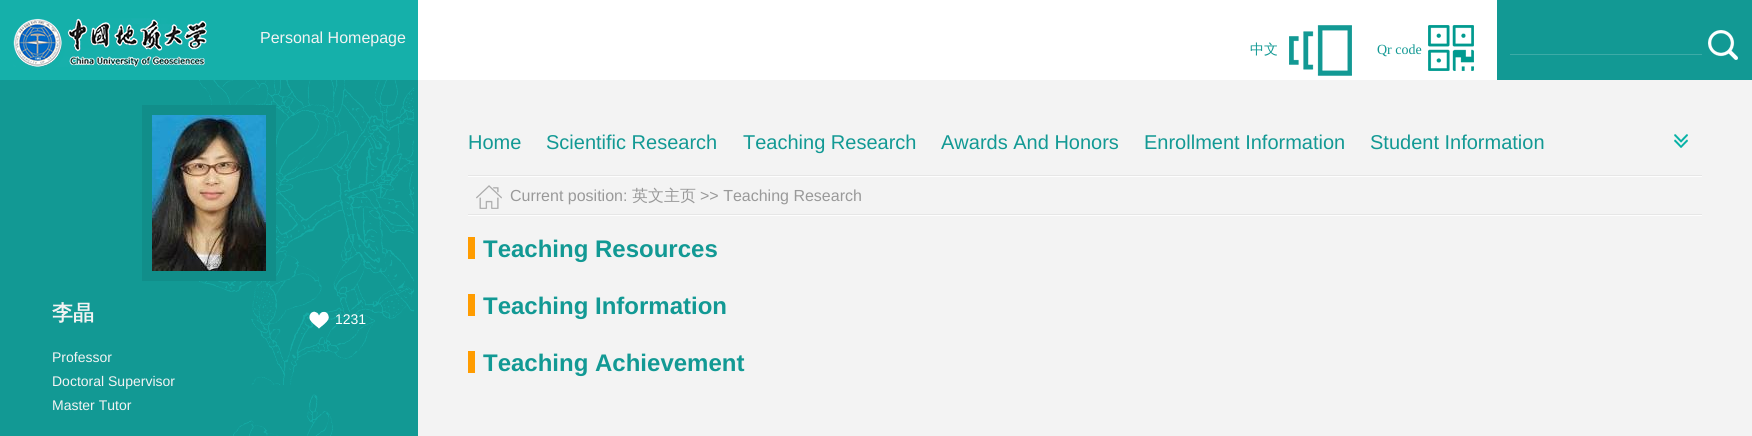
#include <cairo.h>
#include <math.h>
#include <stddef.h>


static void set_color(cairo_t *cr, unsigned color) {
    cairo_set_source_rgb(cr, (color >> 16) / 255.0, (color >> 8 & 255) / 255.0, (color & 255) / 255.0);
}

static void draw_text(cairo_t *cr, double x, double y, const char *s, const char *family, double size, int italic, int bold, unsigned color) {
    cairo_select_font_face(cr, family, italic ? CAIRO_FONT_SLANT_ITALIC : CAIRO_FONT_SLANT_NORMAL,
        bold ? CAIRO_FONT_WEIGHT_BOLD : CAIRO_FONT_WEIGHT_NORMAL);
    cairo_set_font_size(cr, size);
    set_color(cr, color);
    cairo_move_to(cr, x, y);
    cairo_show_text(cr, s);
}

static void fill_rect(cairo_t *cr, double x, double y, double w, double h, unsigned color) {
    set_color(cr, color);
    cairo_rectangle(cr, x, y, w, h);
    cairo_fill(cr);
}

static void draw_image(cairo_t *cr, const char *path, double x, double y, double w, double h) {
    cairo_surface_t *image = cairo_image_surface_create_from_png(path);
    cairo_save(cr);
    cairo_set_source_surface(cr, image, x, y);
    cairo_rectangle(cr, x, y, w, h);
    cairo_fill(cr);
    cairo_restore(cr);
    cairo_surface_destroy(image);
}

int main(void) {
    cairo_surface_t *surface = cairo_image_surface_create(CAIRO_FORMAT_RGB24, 1752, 436);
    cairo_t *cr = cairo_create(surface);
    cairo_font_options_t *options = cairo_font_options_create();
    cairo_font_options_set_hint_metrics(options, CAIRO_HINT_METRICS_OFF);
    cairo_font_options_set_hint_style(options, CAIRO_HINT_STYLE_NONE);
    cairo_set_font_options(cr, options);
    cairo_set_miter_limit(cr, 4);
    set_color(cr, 0x129994);
    cairo_paint(cr);
    fill_rect(cr, 418, 0, 1079, 80, 0xFFFFFF);
    fill_rect(cr, 0, 0, 418, 80, 0x15B0AA);
    draw_image(cr, "assets/img1.png", 13, 18, 194, 49);
    draw_text(cr, 260, 43, "Personal Homepage", "Liberation Sans", 16, 0, 0, 0xF3F3F3);
    fill_rect(cr, 1510, 54, 192, 1, 0x3DABA7);
    draw_image(cr, "assets/img2.png", 1708, 30, 30, 30);
    draw_text(cr, 1250, 54, "中文", "WenQuanYi Zen Hei Medium", 14, 0, 0, 0x129994);
    draw_image(cr, "assets/img3.png", 1289, 25, 63, 51);
    draw_text(cr, 1377, 54, "Qr code", "Liberation Serif", 14, 0, 0, 0x129994);
    draw_image(cr, "assets/img4.png", 1428, 25, 46, 46);
    draw_image(cr, "assets/img5.png", 199, 80, 215, 356);
    cairo_rectangle(cr, 147, 110, 124, 166);
    set_color(cr, 0x118E8A);
    cairo_set_line_width(cr, 10);
    cairo_stroke(cr);
    draw_image(cr, "assets/img6.png", 152, 115, 114, 156);
    draw_text(cr, 52, 320, "李晶", "WenQuanYi Zen Hei", 21, 0, 1, 0xF3F3F3);
    draw_image(cr, "assets/img7.png", 309, 311, 20, 18);
    draw_text(cr, 335, 324, "1231", "Liberation Sans", 14, 0, 0, 0xFFFFFF);
    draw_text(cr, 52, 362, "Professor", "Liberation Sans", 14, 0, 0, 0xF3F3F3);
    draw_text(cr, 52, 386, "Doctoral Supervisor", "Liberation Sans", 14, 0, 0, 0xF3F3F3);
    draw_text(cr, 52, 410, "Master Tutor", "Liberation Sans", 14, 0, 0, 0xF3F3F3);
    fill_rect(cr, 418, 80, 1334, 356, 0xF3F3F3);
    draw_text(cr, 468, 149, "Home", "Liberation Sans", 20, 0, 0, 0x129994);
    draw_text(cr, 546, 149, "Scientific Research", "Liberation Sans", 20, 0, 0, 0x129994);
    draw_text(cr, 743, 149, "Teaching Research", "Liberation Sans", 20, 0, 0, 0x129994);
    draw_text(cr, 941, 149, "Awards And Honors", "Liberation Sans", 20, 0, 0, 0x129994);
    draw_text(cr, 1144, 149, "Enrollment Information", "Liberation Sans", 20, 0, 0, 0x129994);
    draw_text(cr, 1370, 149, "Student Information", "Liberation Sans", 20, 0, 0, 0x129994);
    draw_image(cr, "assets/img8.png", 1674, 134, 14, 14);
    draw_image(cr, "assets/img9.png", 468, 175, 1234, 41);
    draw_image(cr, "assets/img10.png", 476, 185, 26, 24);
    draw_text(cr, 510, 201, "Current position:", "Liberation Sans", 16, 0, 0, 0x999999);
    draw_text(cr, 632, 201, "英文主页", "WenQuanYi Zen Hei Medium", 16, 0, 0, 0x999999);
    draw_text(cr, 700, 201, ">> Teaching Research", "Liberation Sans", 16, 0, 0, 0x999999);
    fill_rect(cr, 468, 237, 7, 22, 0xFF9C00);
    draw_text(cr, 483, 257, "Teaching Resources", "Liberation Sans", 24, 0, 1, 0x129994);
    fill_rect(cr, 468, 294, 7, 22, 0xFF9C00);
    draw_text(cr, 483, 314, "Teaching Information", "Liberation Sans", 24, 0, 1, 0x129994);
    fill_rect(cr, 468, 351, 7, 22, 0xFF9C00);
    draw_text(cr, 483, 371, "Teaching Achievement", "Liberation Sans", 24, 0, 1, 0x129994);
    cairo_surface_write_to_png(surface, "output.png");
    cairo_font_options_destroy(options);
    cairo_destroy(cr);
    cairo_surface_destroy(surface);
    return 0;
}
